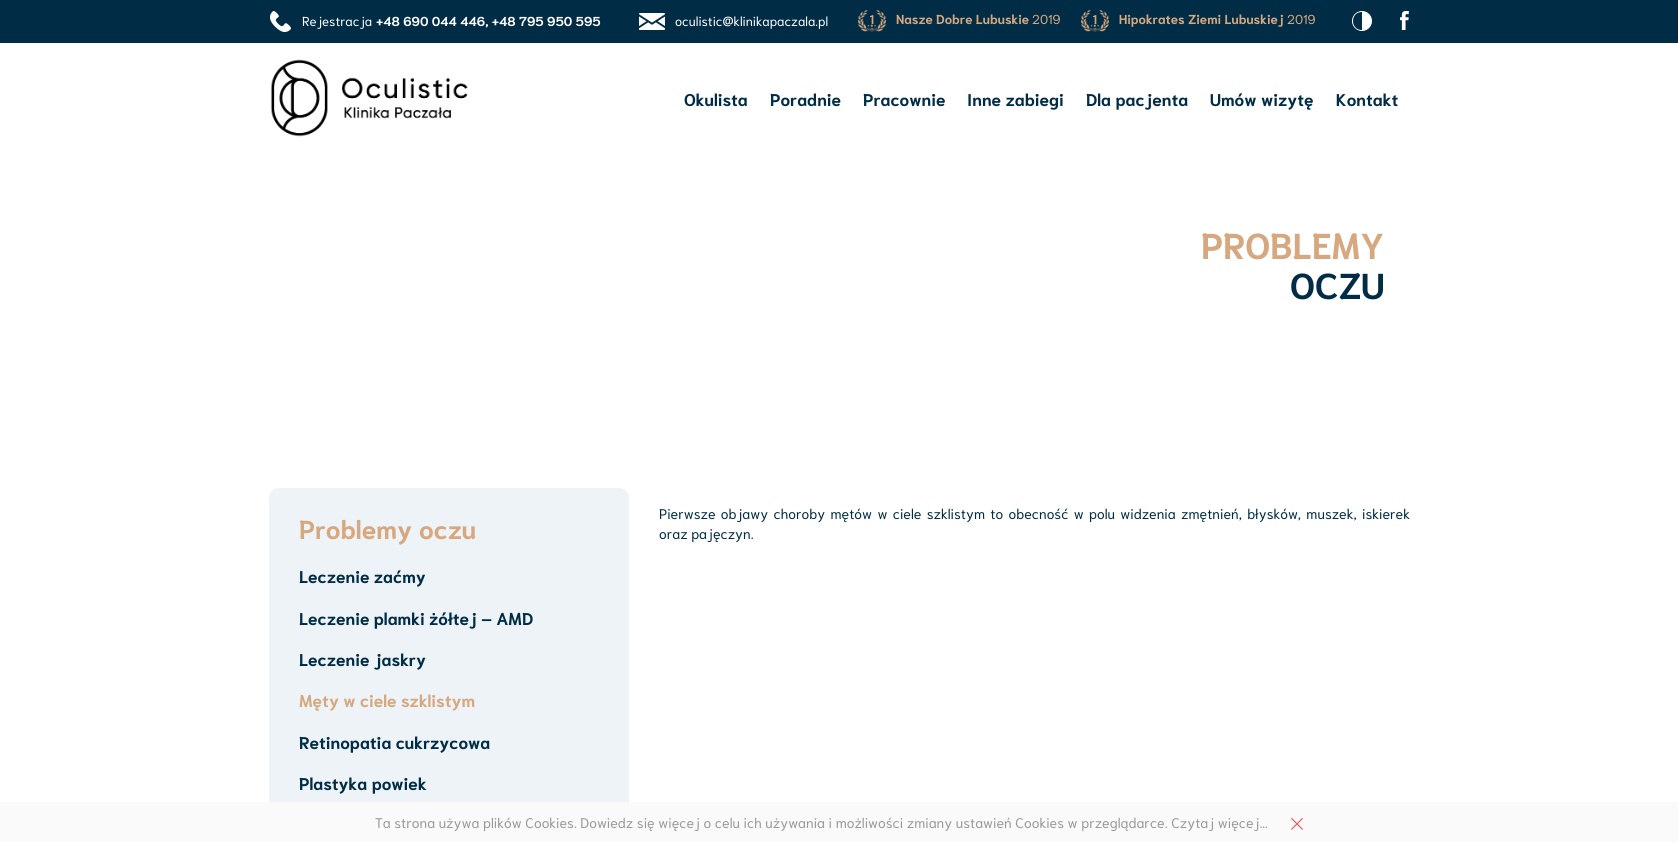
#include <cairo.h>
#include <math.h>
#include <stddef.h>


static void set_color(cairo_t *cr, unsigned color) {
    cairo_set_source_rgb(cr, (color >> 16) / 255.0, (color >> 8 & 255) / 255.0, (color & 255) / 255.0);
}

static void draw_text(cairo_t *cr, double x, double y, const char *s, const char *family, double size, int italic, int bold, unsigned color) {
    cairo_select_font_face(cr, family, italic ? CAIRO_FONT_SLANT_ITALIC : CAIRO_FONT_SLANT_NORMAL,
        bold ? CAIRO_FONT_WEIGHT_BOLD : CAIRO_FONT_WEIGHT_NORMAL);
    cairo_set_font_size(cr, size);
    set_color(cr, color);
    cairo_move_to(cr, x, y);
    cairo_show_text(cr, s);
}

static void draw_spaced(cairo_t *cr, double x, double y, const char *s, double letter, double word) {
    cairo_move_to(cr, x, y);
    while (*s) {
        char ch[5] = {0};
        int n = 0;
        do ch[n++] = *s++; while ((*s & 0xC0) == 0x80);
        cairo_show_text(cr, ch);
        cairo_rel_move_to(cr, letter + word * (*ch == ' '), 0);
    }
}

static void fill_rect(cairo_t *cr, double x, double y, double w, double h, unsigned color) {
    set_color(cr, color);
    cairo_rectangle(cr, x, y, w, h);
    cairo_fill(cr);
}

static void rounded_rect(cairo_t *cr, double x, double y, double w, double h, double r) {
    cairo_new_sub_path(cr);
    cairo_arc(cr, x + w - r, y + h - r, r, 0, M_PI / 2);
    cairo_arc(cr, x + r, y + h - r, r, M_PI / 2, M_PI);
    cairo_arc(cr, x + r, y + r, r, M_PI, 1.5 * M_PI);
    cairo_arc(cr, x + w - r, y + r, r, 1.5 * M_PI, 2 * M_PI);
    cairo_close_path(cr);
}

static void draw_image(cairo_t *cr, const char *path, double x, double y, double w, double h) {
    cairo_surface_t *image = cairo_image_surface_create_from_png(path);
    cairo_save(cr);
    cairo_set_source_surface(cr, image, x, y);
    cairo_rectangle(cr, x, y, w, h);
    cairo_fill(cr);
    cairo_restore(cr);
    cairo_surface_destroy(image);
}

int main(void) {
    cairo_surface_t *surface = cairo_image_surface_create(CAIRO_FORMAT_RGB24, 1678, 842);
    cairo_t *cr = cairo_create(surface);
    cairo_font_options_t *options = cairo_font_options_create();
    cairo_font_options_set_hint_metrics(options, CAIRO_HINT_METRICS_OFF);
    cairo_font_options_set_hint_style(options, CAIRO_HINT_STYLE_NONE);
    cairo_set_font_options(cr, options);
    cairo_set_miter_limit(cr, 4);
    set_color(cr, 0xFFFFFF);
    cairo_paint(cr);
    fill_rect(cr, 0, 0, 1678, 43, 0x002C45);
    draw_image(cr, "assets/img1.png", 270, 11, 21, 21);
    draw_text(cr, 302, 26, "Rejestracja", "Niramit", 13, 0, 0, 0xFFFFFF);
    draw_text(cr, 376, 26, "+48 690 044 446, +48 795 950 595", "Niramit", 13, 0, 1, 0xFFFFFF);
    draw_image(cr, "assets/img2.png", 639, 13, 26, 17);
    draw_text(cr, 675, 26, "oculistic@klinikapaczala.pl", "Niramit", 13, 0, 0, 0xFFFFFF);
    draw_image(cr, "assets/img3.png", 858, 10, 28, 22);
    draw_text(cr, 896, 24, "Nasze Dobre Lubuskie", "Niramit", 13, 0, 1, 0xD7A880);
    draw_text(cr, 1032, 24, "2019", "Niramit", 13, 0, 0, 0xD7A880);
    draw_image(cr, "assets/img3.png", 1081, 10, 28, 22);
    draw_text(cr, 1119, 24, "Hipokrates Ziemi Lubuskiej", "Niramit", 13, 0, 1, 0xD7A880);
    draw_text(cr, 1287, 24, "2019", "Niramit", 13, 0, 0, 0xD7A880);
    set_color(cr, 0xFFFFFF);
    cairo_new_path(cr);
    cairo_arc(cr, 1362, 21, 9.5, 0, 2 * M_PI);
    cairo_fill_preserve(cr);
    cairo_set_line_width(cr, 1);
    cairo_stroke(cr);
    set_color(cr, 0x002C45);
    cairo_set_fill_rule(cr, CAIRO_FILL_RULE_EVEN_ODD);
    cairo_new_path(cr);
    cairo_move_to(cr, 1362, 12);
    cairo_line_to(cr, 1362, 30);
    cairo_curve_to(cr, 1350, 30, 1350, 12, 1362, 12);
    cairo_close_path(cr);
    cairo_move_to(cr, 1362, 21);
    cairo_close_path(cr);
    cairo_fill(cr);
    draw_image(cr, "assets/img4.png", 1400, 11, 9, 19);
    draw_image(cr, "assets/img5.png", 270, 59, 198, 78);
    draw_text(cr, 684, 106, "Okulista", "Niramit", 17, 0, 1, 0x002C45);
    draw_text(cr, 770, 106, "Poradnie", "Niramit", 17, 0, 1, 0x002C45);
    draw_text(cr, 863, 106, "Pracownie", "Niramit", 17, 0, 1, 0x002C45);
    draw_text(cr, 967, 106, "Inne zabiegi", "Niramit", 17, 0, 1, 0x002C45);
    draw_text(cr, 1086, 106, "Dla pacjenta", "Niramit", 17, 0, 1, 0x002C45);
    draw_text(cr, 1210, 106, "Umów wizytę", "Niramit", 17, 0, 1, 0x002C45);
    draw_text(cr, 1336, 106, "Kontakt", "Niramit", 17, 0, 1, 0x002C45);
    draw_text(cr, 1201, 259, "PROBLEMY", "Niramit", 36, 0, 1, 0xD7A880);
    draw_text(cr, 1290, 299, "OCZU", "Niramit", 36, 0, 1, 0x002C45);
    set_color(cr, 0xEDF3F6);
    rounded_rect(cr, 269, 488, 360, 332, 10);
    cairo_fill(cr);
    draw_text(cr, 299, 539, "Problemy oczu", "Niramit", 26, 0, 1, 0xD7A880);
    draw_text(cr, 299, 583, "Leczenie zaćmy", "Niramit", 17, 0, 1, 0x002C45);
    draw_text(cr, 299, 625, "Leczenie plamki żółtej – AMD", "Niramit", 17, 0, 1, 0x002C45);
    draw_text(cr, 299, 666, "Leczenie jaskry", "Niramit", 17, 0, 1, 0x002C45);
    draw_text(cr, 299, 707, "Męty w ciele szklistym", "Niramit", 17, 0, 1, 0xD7A880);
    draw_text(cr, 299, 749, "Retinopatia cukrzycowa", "Niramit", 17, 0, 1, 0x002C45);
    draw_text(cr, 299, 790, "Plastyka powiek", "Niramit", 17, 0, 1, 0x002C45);
    cairo_select_font_face(cr, "Niramit", CAIRO_FONT_SLANT_NORMAL, CAIRO_FONT_WEIGHT_NORMAL);
    cairo_set_font_size(cr, 14);
    draw_spaced(cr, 659, 519, "Pierwsze objawy choroby mętów w ciele szklistym to obecność w polu widzenia zmętnień, błysków, muszek, iskierek", 0, 1.75);
    draw_text(cr, 659, 539, "oraz pajęczyn.", "Niramit", 14, 0, 0, 0x002C45);
    fill_rect(cr, 0, 802, 1678, 40, 0xFAFAFA);
    draw_text(cr, 375, 828, "Ta strona używa plików Cookies. Dowiedz się więcej o celu ich używania i możliwości zmiany ustawień Cookies w przeglądarce. Czytaj więcej...", "Niramit", 14, 0, 0, 0x999999);
    draw_image(cr, "assets/img6.png", 1291, 818, 12, 12);
    cairo_surface_write_to_png(surface, "output.png");
    cairo_font_options_destroy(options);
    cairo_destroy(cr);
    cairo_surface_destroy(surface);
    return 0;
}
